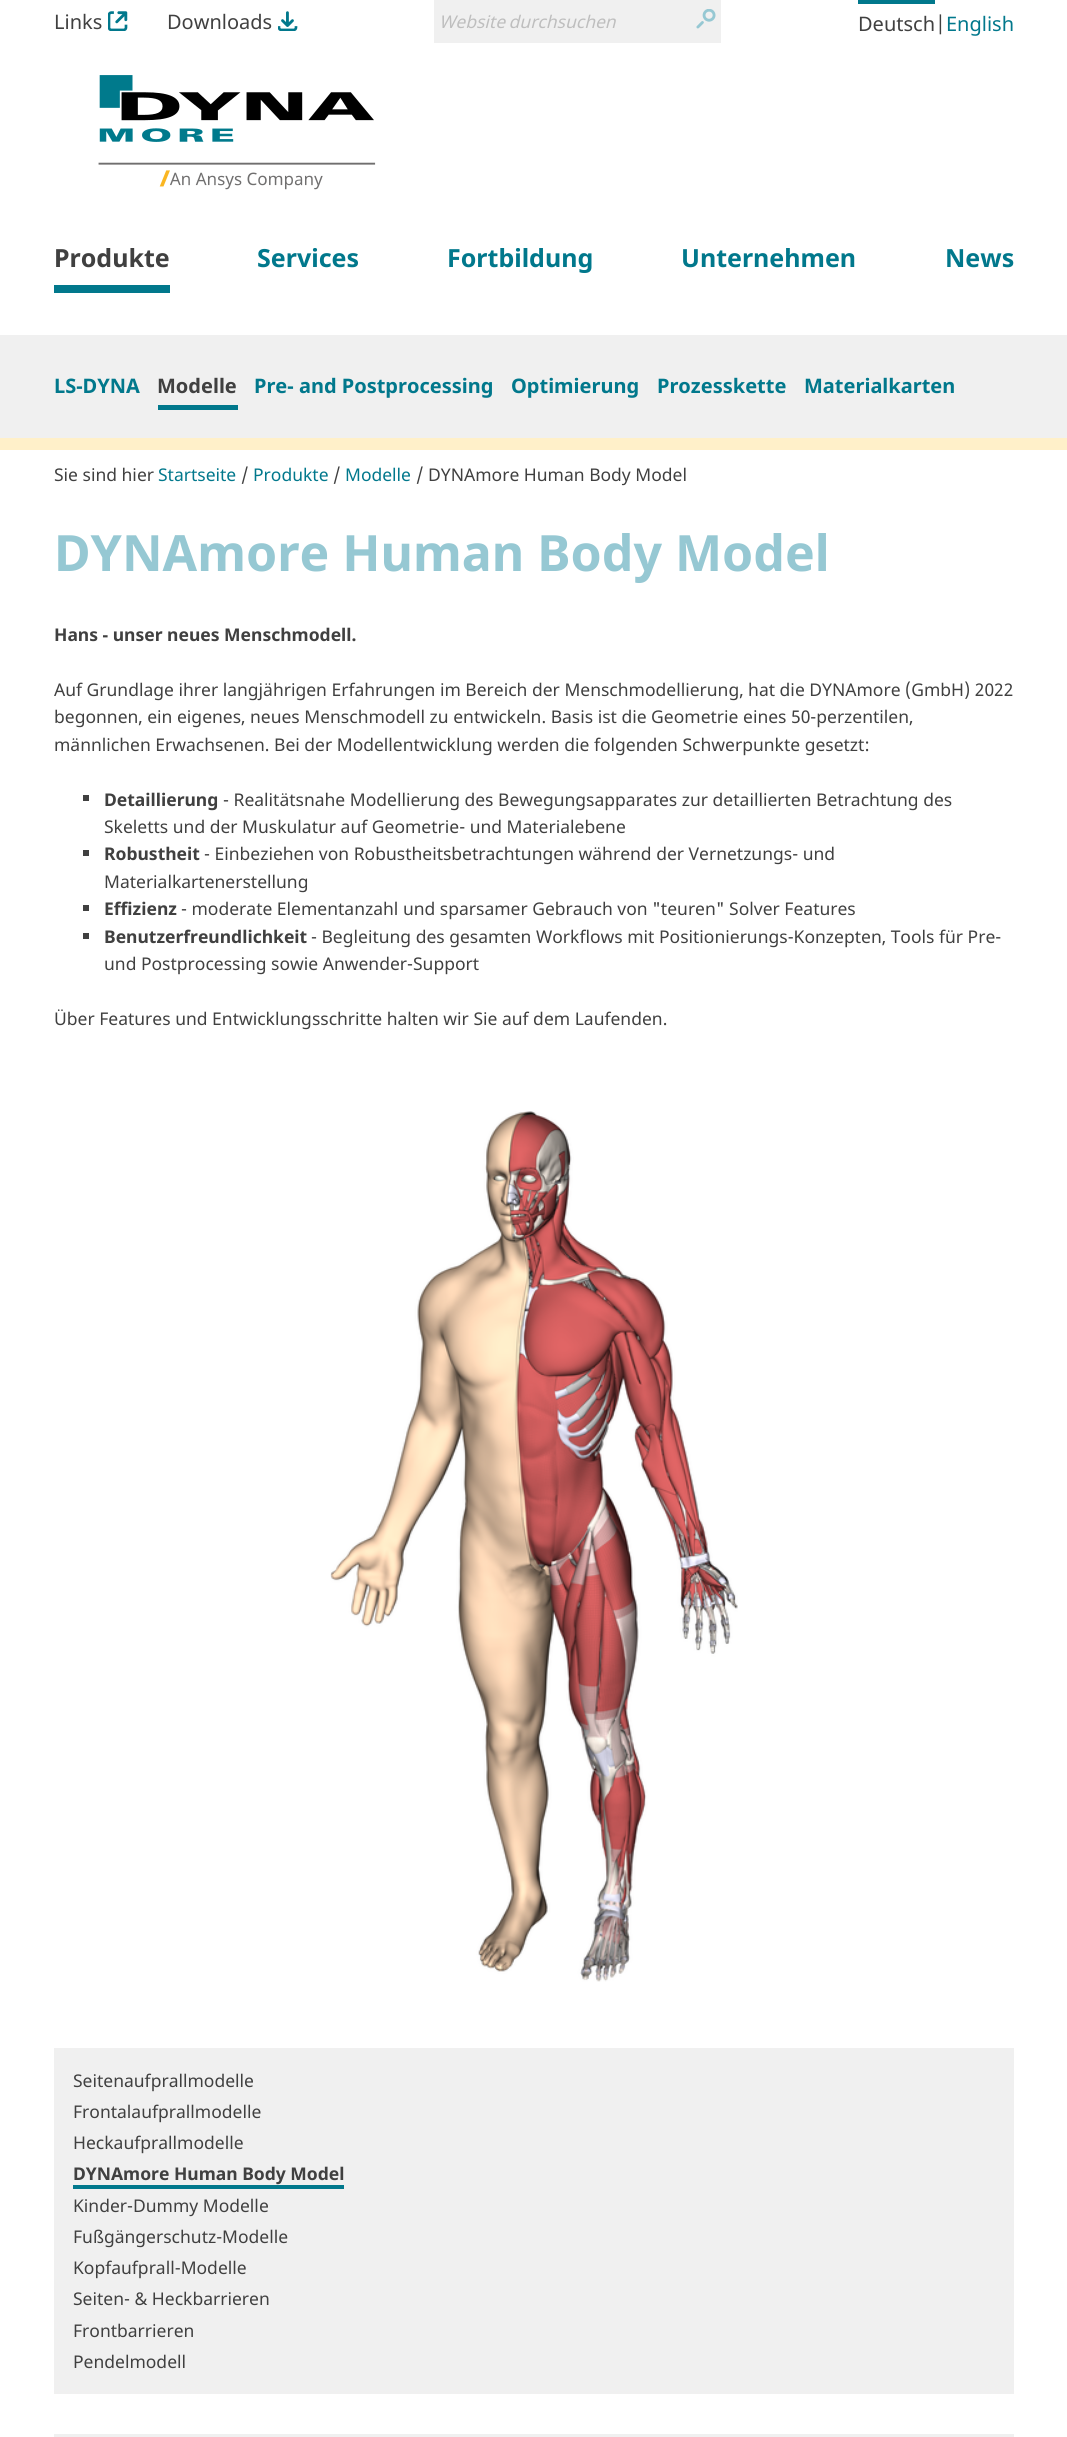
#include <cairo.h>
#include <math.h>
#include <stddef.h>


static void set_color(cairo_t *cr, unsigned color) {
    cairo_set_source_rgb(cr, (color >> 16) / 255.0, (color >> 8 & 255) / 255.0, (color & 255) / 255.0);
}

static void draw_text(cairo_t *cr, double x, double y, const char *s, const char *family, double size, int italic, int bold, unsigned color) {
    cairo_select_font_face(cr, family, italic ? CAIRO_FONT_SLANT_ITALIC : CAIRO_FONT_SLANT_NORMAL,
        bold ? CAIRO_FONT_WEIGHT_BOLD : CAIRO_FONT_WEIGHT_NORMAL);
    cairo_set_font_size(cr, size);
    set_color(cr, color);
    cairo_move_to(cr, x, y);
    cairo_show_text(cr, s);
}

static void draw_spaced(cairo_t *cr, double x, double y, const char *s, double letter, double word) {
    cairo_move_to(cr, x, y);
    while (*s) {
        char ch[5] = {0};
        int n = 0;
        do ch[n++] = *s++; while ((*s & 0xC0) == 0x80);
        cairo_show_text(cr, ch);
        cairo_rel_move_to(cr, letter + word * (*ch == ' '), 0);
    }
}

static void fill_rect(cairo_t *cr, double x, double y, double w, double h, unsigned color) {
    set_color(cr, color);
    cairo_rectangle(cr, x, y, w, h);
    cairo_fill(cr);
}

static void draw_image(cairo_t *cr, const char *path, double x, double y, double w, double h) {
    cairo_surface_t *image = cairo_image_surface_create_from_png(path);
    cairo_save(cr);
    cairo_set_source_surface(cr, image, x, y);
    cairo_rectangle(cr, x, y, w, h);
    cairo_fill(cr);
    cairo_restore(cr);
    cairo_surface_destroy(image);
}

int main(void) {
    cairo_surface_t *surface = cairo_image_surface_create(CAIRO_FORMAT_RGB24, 1067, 2437);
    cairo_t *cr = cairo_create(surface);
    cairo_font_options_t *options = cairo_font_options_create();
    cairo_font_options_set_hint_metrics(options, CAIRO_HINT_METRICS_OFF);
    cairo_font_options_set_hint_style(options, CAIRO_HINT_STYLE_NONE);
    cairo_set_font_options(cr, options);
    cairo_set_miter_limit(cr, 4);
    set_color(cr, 0xFFFFFF);
    cairo_paint(cr);
    draw_text(cr, 54, 29, "Links", "Noto Sans", 20, 0, 0, 0x404040);
    draw_image(cr, "assets/img1.png", 108, 11, 20, 20);
    draw_text(cr, 167, 29, "Downloads", "Noto Sans", 20, 0, 0, 0x404040);
    draw_image(cr, "assets/img2.png", 278, 11, 20, 20);
    fill_rect(cr, 434, 0, 287, 43, 0xF0F0F0);
    cairo_select_font_face(cr, "Noto Sans", CAIRO_FONT_SLANT_ITALIC, CAIRO_FONT_WEIGHT_NORMAL);
    cairo_set_font_size(cr, 17.5);
    set_color(cr, 0xBEBEBE);
    draw_spaced(cr, 439, 28, "Website durchsuchen", 0, -1);
    draw_image(cr, "assets/img3.png", 696, 9, 20, 20);
    fill_rect(cr, 858, 0, 77, 4, 0x01788C);
    draw_text(cr, 858, 31, "Deutsch|", "Noto Sans", 20, 0, 0, 0x404040);
    draw_text(cr, 946, 31, "English", "Noto Sans", 20, 0, 0, 0x01788C);
    draw_image(cr, "assets/img4.png", 98, 75, 278, 115);
    fill_rect(cr, 54, 285, 116, 8, 0x01788C);
    draw_text(cr, 54, 267, "Produkte", "Noto Sans", 25, 0, 1, 0x404040);
    draw_text(cr, 257, 267, "Services", "Noto Sans", 25, 0, 1, 0x01788C);
    draw_text(cr, 447, 267, "Fortbildung", "Noto Sans", 25, 0, 1, 0x01788C);
    draw_text(cr, 681, 267, "Unternehmen", "Noto Sans", 25, 0, 1, 0x01788C);
    draw_text(cr, 945, 267, "News", "Noto Sans", 25, 0, 1, 0x01788C);
    fill_rect(cr, 0, 335, 1067, 103, 0xF0F0F0);
    fill_rect(cr, 0, 438, 1067, 12, 0xFFF0C9);
    draw_text(cr, 54, 393, "LS-DYNA", "Noto Sans", 20, 0, 1, 0x01788C);
    fill_rect(cr, 158, 405, 80, 5, 0x01788C);
    draw_text(cr, 157, 393, "Modelle", "Noto Sans", 20, 0, 1, 0x404040);
    draw_text(cr, 254, 393, "Pre- and Postprocessing", "Noto Sans", 20, 0, 1, 0x01788C);
    draw_text(cr, 511, 393, "Optimierung", "Noto Sans", 20, 0, 1, 0x01788C);
    draw_text(cr, 657, 393, "Prozesskette", "Noto Sans", 20, 0, 1, 0x01788C);
    draw_text(cr, 804, 393, "Materialkarten", "Noto Sans", 20, 0, 1, 0x01788C);
    draw_text(cr, 54, 481, "Sie sind hier", "Noto Sans", 17.5, 0, 0, 0x404040);
    draw_text(cr, 158, 481, "Startseite", "Noto Sans", 17.5, 0, 0, 0x01788C);
    draw_text(cr, 241, 481, "/", "Noto Sans", 17.5, 0, 0, 0x404040);
    draw_text(cr, 253, 481, "Produkte", "Noto Sans", 17.5, 0, 0, 0x01788C);
    draw_text(cr, 333, 481, "/", "Noto Sans", 17.5, 0, 0, 0x404040);
    draw_text(cr, 345, 481, "Modelle", "Noto Sans", 17.5, 0, 0, 0x01788C);
    draw_text(cr, 416, 481, "/ DYNAmore Human Body Model", "Noto Sans", 17.5, 0, 0, 0x404040);
    draw_text(cr, 54, 571, "DYNAmore Human Body Model", "Noto Sans", 50, 0, 1, 0x96C8D3);
    draw_text(cr, 54, 641, "Hans - unser neues Menschmodell.", "Noto Sans", 17.5, 0, 1, 0x404040);
    draw_text(cr, 54, 696, "Auf Grundlage ihrer langjährigen Erfahrungen im Bereich der Menschmodellierung, hat die DYNAmore (GmbH) 2022", "Noto Sans", 17.5, 0, 0, 0x404040);
    draw_text(cr, 54, 723, "begonnen, ein eigenes, neues Menschmodell zu entwickeln. Basis ist die Geometrie eines 50-perzentilen,", "Noto Sans", 17.5, 0, 0, 0x404040);
    draw_text(cr, 54, 751, "männlichen Erwachsenen. Bei der Modellentwicklung werden die folgenden Schwerpunkte gesetzt:", "Noto Sans", 17.5, 0, 0, 0x404040);
    fill_rect(cr, 83, 795, 6, 6, 0x404040);
    draw_text(cr, 104, 806, "Detaillierung", "Noto Sans", 17.5, 0, 1, 0x404040);
    draw_text(cr, 223, 806, "- Realitätsnahe Modellierung des Bewegungsapparates zur detaillierten Betrachtung des", "Noto Sans", 17.5, 0, 0, 0x404040);
    draw_text(cr, 104, 833, "Skeletts und der Muskulatur auf Geometrie- und Materialebene", "Noto Sans", 17.5, 0, 0, 0x404040);
    fill_rect(cr, 83, 850, 6, 6, 0x404040);
    draw_text(cr, 104, 860, "Robustheit", "Noto Sans", 17.5, 0, 1, 0x404040);
    draw_text(cr, 204, 860, "- Einbeziehen von Robustheitsbetrachtungen während der Vernetzungs- und", "Noto Sans", 17.5, 0, 0, 0x404040);
    draw_text(cr, 104, 888, "Materialkartenerstellung", "Noto Sans", 17.5, 0, 0, 0x404040);
    fill_rect(cr, 83, 905, 6, 6, 0x404040);
    draw_text(cr, 104, 915, "Effizienz", "Noto Sans", 17.5, 0, 1, 0x404040);
    draw_text(cr, 181, 915, "- moderate Elementanzahl und sparsamer Gebrauch von \"teuren\" Solver Features", "Noto Sans", 17.5, 0, 0, 0x404040);
    fill_rect(cr, 83, 933, 6, 6, 0x404040);
    draw_text(cr, 104, 943, "Benutzerfreundlichkeit", "Noto Sans", 17.5, 0, 1, 0x404040);
    draw_text(cr, 311, 943, "- Begleitung des gesamten Workflows mit Positionierungs-Konzepten, Tools für Pre-", "Noto Sans", 17.5, 0, 0, 0x404040);
    draw_text(cr, 104, 970, "und Postprocessing sowie Anwender-Support", "Noto Sans", 17.5, 0, 0, 0x404040);
    draw_text(cr, 54, 1025, "Über Features und Entwicklungsschritte halten wir Sie auf dem Laufenden.", "Noto Sans", 17.5, 0, 0, 0x404040);
    draw_image(cr, "assets/img5.png", 330, 1111, 408, 871);
    fill_rect(cr, 54, 2048, 960, 346, 0xF0F0F0);
    draw_text(cr, 73, 2087, "Seitenaufprallmodelle", "Noto Sans", 17.5, 0, 0, 0x404040);
    draw_text(cr, 73, 2118, "Frontalaufprallmodelle", "Noto Sans", 17.5, 0, 0, 0x404040);
    draw_text(cr, 73, 2149, "Heckaufprallmodelle", "Noto Sans", 17.5, 0, 0, 0x404040);
    draw_text(cr, 73, 2180, "DYNAmore Human Body Model", "Noto Sans", 17.5, 0, 1, 0x404040);
    fill_rect(cr, 73, 2185, 271, 4, 0x01788C);
    draw_text(cr, 73, 2212, "Kinder-Dummy Modelle", "Noto Sans", 17.5, 0, 0, 0x404040);
    draw_text(cr, 73, 2243, "Fußgängerschutz-Modelle", "Noto Sans", 17.5, 0, 0, 0x404040);
    draw_text(cr, 73, 2274, "Kopfaufprall-Modelle", "Noto Sans", 17.5, 0, 0, 0x404040);
    draw_text(cr, 73, 2305, "Seiten- & Heckbarrieren", "Noto Sans", 17.5, 0, 0, 0x404040);
    draw_text(cr, 73, 2337, "Frontbarrieren", "Noto Sans", 17.5, 0, 0, 0x404040);
    draw_text(cr, 73, 2368, "Pendelmodell", "Noto Sans", 17.5, 0, 0, 0x404040);
    fill_rect(cr, 54, 2434, 960, 3, 0xF0F0F0);
    cairo_surface_write_to_png(surface, "output.png");
    cairo_font_options_destroy(options);
    cairo_destroy(cr);
    cairo_surface_destroy(surface);
    return 0;
}
